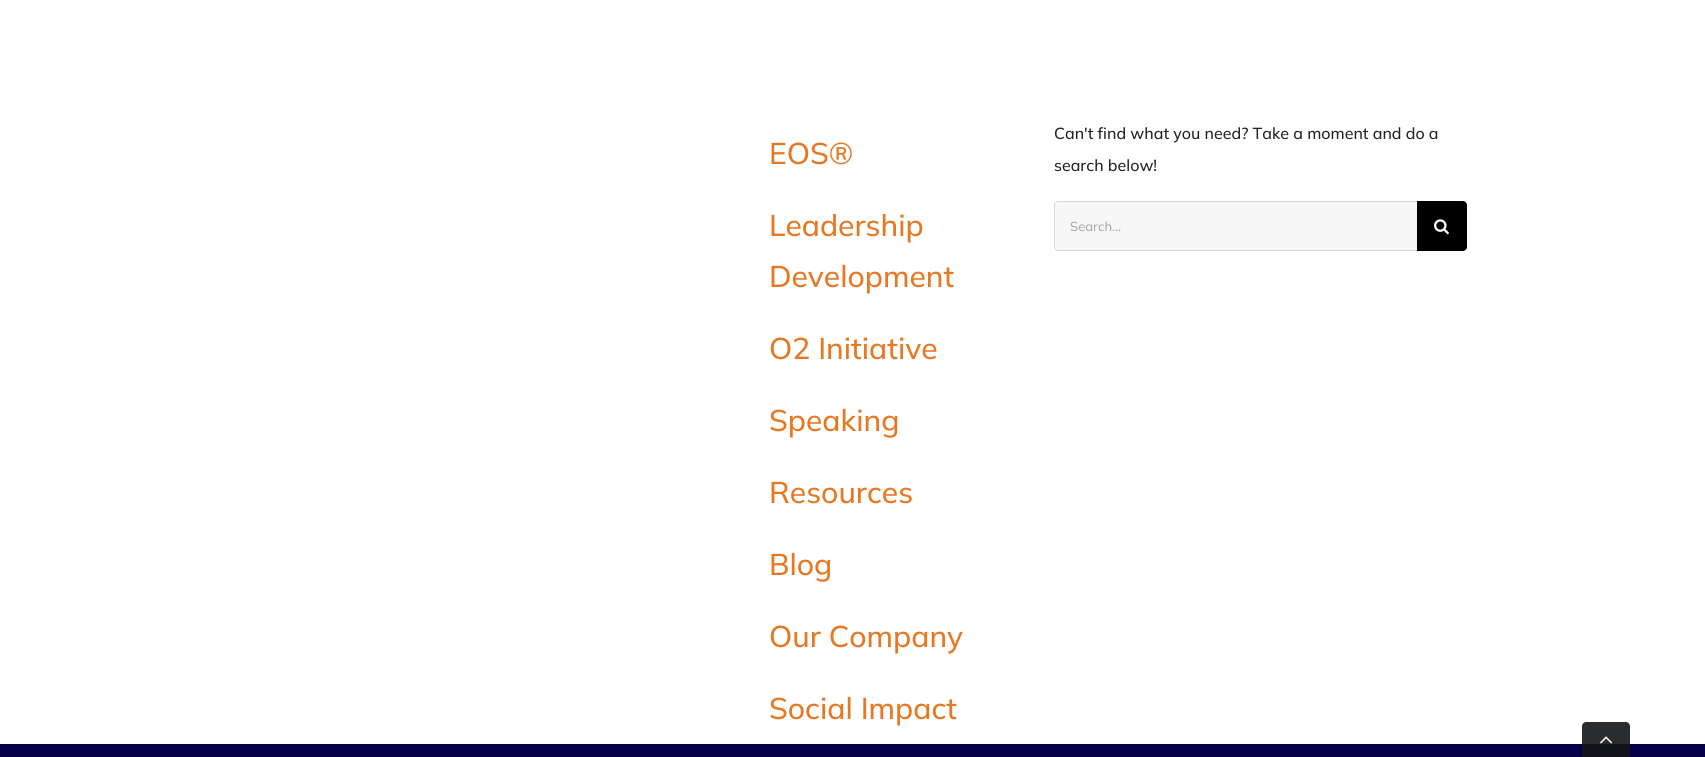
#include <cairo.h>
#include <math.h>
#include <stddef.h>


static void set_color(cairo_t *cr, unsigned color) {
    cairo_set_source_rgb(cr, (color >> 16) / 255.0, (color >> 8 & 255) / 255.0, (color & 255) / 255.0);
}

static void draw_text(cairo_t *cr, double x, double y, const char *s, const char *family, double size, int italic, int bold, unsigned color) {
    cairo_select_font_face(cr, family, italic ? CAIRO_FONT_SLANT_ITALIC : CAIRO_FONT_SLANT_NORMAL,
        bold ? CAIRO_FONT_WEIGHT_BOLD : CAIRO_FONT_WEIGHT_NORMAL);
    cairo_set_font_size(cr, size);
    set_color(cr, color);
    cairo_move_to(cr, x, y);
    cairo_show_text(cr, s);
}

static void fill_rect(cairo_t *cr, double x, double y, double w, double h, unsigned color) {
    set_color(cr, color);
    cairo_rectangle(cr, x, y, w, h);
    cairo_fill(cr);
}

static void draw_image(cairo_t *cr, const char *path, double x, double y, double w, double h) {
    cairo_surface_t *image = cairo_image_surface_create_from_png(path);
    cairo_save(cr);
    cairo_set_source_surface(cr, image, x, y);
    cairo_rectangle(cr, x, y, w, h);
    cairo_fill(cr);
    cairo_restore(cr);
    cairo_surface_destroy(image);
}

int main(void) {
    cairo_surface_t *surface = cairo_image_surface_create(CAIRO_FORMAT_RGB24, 1705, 757);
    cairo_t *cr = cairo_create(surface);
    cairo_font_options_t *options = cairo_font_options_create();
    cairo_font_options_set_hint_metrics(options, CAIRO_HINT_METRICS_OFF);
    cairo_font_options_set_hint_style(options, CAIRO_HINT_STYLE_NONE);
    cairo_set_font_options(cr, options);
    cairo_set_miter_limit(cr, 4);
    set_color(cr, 0xFFFFFF);
    cairo_paint(cr);
    draw_text(cr, 769, 164, "EOS®", "Mulish Medium", 30, 0, 0, 0xE87722);
    draw_text(cr, 769, 236, "Leadership", "Mulish Medium", 30, 0, 0, 0xE87722);
    draw_text(cr, 769, 287, "Development", "Mulish Medium", 30, 0, 0, 0xE87722);
    draw_text(cr, 769, 359, "O2 Initiative", "Mulish Medium", 30, 0, 0, 0xE87722);
    draw_text(cr, 769, 431, "Speaking", "Mulish Medium", 30, 0, 0, 0xE87722);
    draw_text(cr, 769, 503, "Resources", "Mulish Medium", 30, 0, 0, 0xE87722);
    draw_text(cr, 769, 575, "Blog", "Mulish Medium", 30, 0, 0, 0xE87722);
    draw_text(cr, 769, 647, "Our Company", "Mulish Medium", 30, 0, 0, 0xE87722);
    draw_text(cr, 769, 719, "Social Impact", "Mulish Medium", 30, 0, 0, 0xE87722);
    draw_text(cr, 1054, 139, "Can't find what you need? Take a moment and do a", "Mulish Medium", 16, 0, 0, 0x222222);
    draw_text(cr, 1054, 171, "search below!", "Mulish Medium", 16, 0, 0, 0x222222);
    set_color(cr, 0xF7F7F7);
    cairo_new_path(cr);
    cairo_move_to(cr, 1058, 201);
    cairo_line_to(cr, 1417, 201);
    cairo_line_to(cr, 1417, 251);
    cairo_line_to(cr, 1058, 251);
    cairo_curve_to(cr, 1056, 251, 1054, 249, 1054, 247);
    cairo_line_to(cr, 1054, 205);
    cairo_curve_to(cr, 1054, 203, 1056, 201, 1058, 201);
    cairo_close_path(cr);
    cairo_fill(cr);
    set_color(cr, 0xD8D8D8);
    cairo_set_fill_rule(cr, CAIRO_FILL_RULE_EVEN_ODD);
    cairo_new_path(cr);
    cairo_move_to(cr, 1058, 201);
    cairo_line_to(cr, 1417, 201);
    cairo_line_to(cr, 1417, 251);
    cairo_line_to(cr, 1058, 251);
    cairo_curve_to(cr, 1056, 251, 1054, 249, 1054, 247);
    cairo_line_to(cr, 1054, 205);
    cairo_curve_to(cr, 1054, 203, 1056, 201, 1058, 201);
    cairo_close_path(cr);
    cairo_move_to(cr, 1058, 202);
    cairo_line_to(cr, 1417, 202);
    cairo_line_to(cr, 1417, 250);
    cairo_line_to(cr, 1058, 250);
    cairo_curve_to(cr, 1056, 250, 1055, 249, 1055, 247);
    cairo_line_to(cr, 1055, 205);
    cairo_curve_to(cr, 1055, 203, 1056, 202, 1058, 202);
    cairo_close_path(cr);
    cairo_fill(cr);
    draw_text(cr, 1070, 231, "Search...", "Mulish Medium", 13, 0, 0, 0xAAA9A9);
    set_color(cr, 0x000000);
    cairo_new_path(cr);
    cairo_move_to(cr, 1417, 201);
    cairo_line_to(cr, 1463, 201);
    cairo_curve_to(cr, 1465, 201, 1467, 203, 1467, 205);
    cairo_line_to(cr, 1467, 247);
    cairo_curve_to(cr, 1467, 249, 1465, 251, 1463, 251);
    cairo_line_to(cr, 1417, 251);
    cairo_close_path(cr);
    cairo_fill(cr);
    draw_image(cr, "assets/img1.png", 1434, 219, 15, 16);
    fill_rect(cr, 0, 744, 1705, 13, 0x030047);
    cairo_set_source_rgba(cr, 0.078, 0.086, 0.09, 0.9);
    cairo_new_path(cr);
    cairo_move_to(cr, 1586, 722);
    cairo_line_to(cr, 1626, 722);
    cairo_curve_to(cr, 1628, 722, 1630, 724, 1630, 726);
    cairo_line_to(cr, 1630, 757);
    cairo_line_to(cr, 1582, 757);
    cairo_line_to(cr, 1582, 726);
    cairo_curve_to(cr, 1582, 724, 1584, 722, 1586, 722);
    cairo_close_path(cr);
    cairo_fill(cr);
    draw_image(cr, "assets/img2.png", 1600, 736, 13, 8);
    cairo_surface_write_to_png(surface, "output.png");
    cairo_font_options_destroy(options);
    cairo_destroy(cr);
    cairo_surface_destroy(surface);
    return 0;
}
